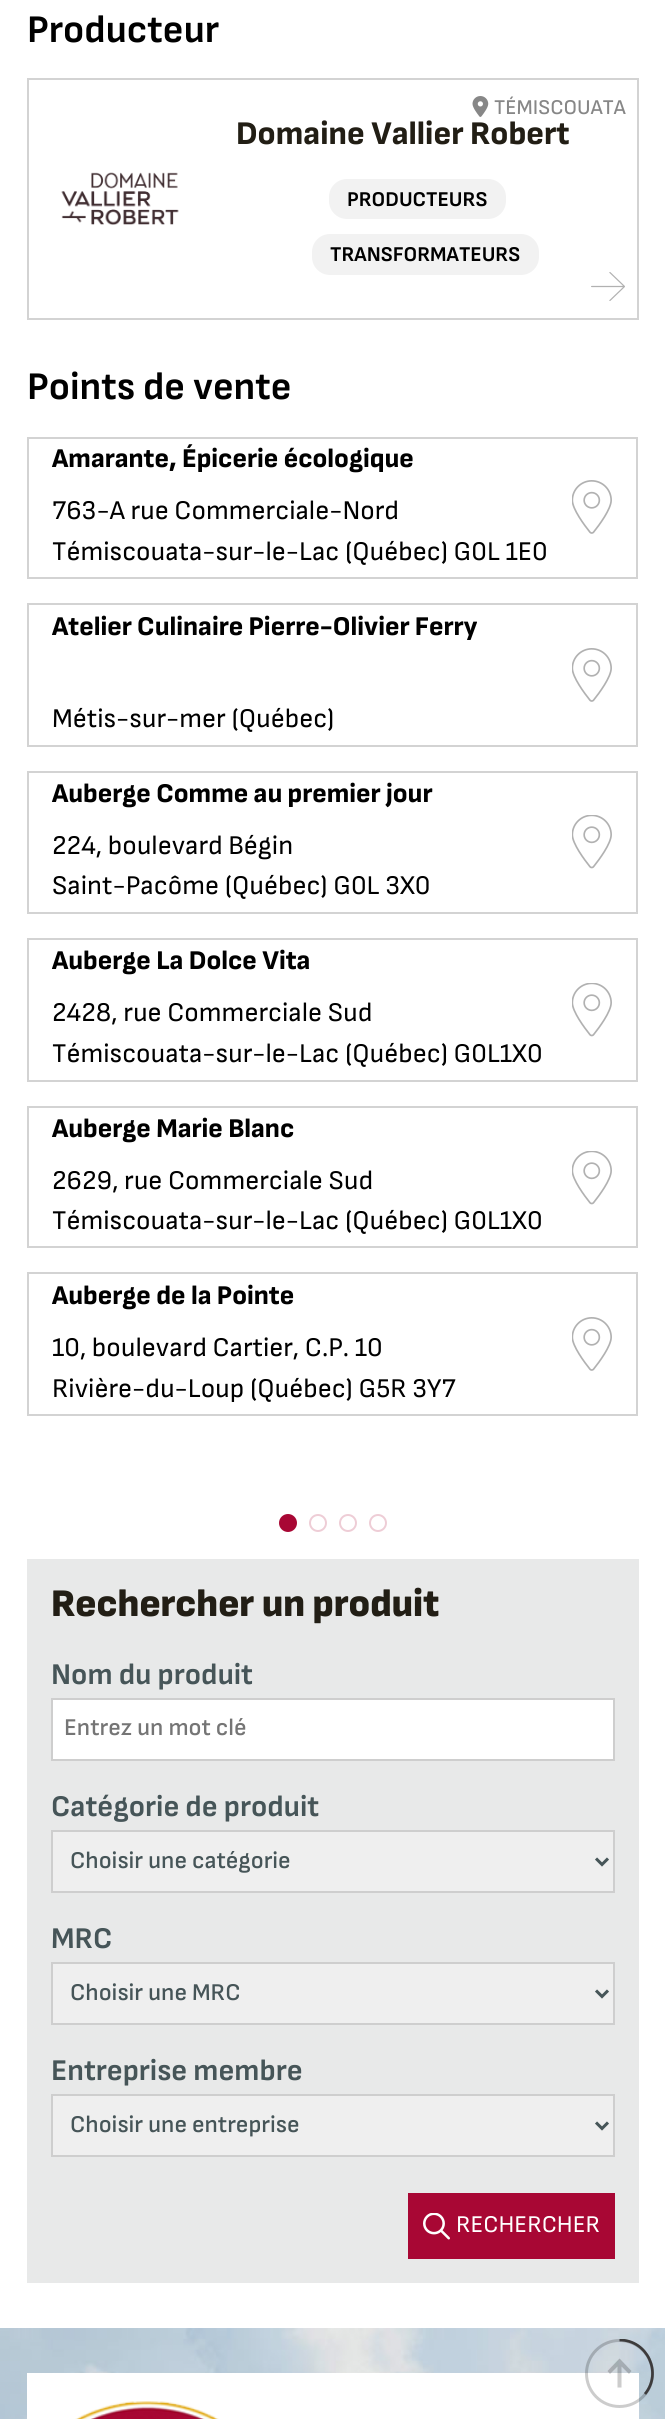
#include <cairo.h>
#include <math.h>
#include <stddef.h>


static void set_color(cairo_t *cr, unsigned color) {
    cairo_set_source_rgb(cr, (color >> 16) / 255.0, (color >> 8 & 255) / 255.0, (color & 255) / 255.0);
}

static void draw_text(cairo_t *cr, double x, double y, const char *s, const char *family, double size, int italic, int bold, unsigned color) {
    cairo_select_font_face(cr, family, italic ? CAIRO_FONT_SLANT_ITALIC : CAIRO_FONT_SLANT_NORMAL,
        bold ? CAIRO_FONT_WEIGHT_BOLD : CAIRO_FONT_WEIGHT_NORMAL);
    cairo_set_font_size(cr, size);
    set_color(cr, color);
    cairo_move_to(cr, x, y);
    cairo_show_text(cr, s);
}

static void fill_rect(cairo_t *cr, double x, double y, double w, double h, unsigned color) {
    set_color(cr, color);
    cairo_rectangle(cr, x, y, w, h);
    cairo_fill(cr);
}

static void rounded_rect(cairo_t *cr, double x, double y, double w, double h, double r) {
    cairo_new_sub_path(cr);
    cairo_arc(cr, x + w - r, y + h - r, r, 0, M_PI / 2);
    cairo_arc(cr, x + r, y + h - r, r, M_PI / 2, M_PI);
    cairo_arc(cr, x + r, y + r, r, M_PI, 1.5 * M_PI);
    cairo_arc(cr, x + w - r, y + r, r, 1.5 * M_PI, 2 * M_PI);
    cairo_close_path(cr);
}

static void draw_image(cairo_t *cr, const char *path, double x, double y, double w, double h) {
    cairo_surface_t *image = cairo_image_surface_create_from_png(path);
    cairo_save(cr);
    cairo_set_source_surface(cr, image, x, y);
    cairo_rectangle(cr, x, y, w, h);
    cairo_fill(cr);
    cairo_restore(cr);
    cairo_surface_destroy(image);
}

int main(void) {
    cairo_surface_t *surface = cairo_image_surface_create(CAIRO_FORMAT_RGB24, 665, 2419);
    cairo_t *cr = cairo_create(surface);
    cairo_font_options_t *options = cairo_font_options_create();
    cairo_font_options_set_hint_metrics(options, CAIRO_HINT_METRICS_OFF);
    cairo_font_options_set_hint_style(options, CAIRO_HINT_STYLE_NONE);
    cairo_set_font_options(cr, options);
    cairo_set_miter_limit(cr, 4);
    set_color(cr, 0xFFFFFF);
    cairo_paint(cr);
    draw_text(cr, 27, 42, "Producteur", "Sofia Sans", 39, 0, 1, 0x000000);
    cairo_rectangle(cr, 28, 79, 610, 240);
    set_color(cr, 0xD3D3D3);
    cairo_stroke(cr);
    draw_image(cr, "assets/img1.png", 472, 96, 17, 21);
    draw_text(cr, 494, 114, "TÉMISCOUATA", "Sofia Sans Medium", 21, 0, 0, 0x878787);
    draw_image(cr, "assets/img2.png", 61, 172, 118, 53);
    draw_text(cr, 236, 144, "Domaine Vallier Robert", "Sofia Sans ExtraBold", 33, 0, 0, 0x221E15);
    set_color(cr, 0xF2F2F2);
    rounded_rect(cr, 329, 179, 177, 40, 18);
    cairo_fill(cr);
    draw_text(cr, 347, 206, "PRODUCTEURS", "Sofia Sans", 21, 0, 1, 0x000000);
    set_color(cr, 0xF2F2F2);
    rounded_rect(cr, 312, 234, 227, 41, 18);
    cairo_fill(cr);
    draw_text(cr, 330, 261, "TRANSFORMATEURS", "Sofia Sans", 21, 0, 1, 0x000000);
    draw_image(cr, "assets/img3.png", 591, 272, 34, 29);
    draw_text(cr, 27, 399, "Points de vente", "Sofia Sans", 39, 0, 1, 0x000000);
    cairo_rectangle(cr, 28, 438, 609, 140);
    set_color(cr, 0xD3D3D3);
    cairo_stroke(cr);
    draw_text(cr, 52, 467, "Amarante, Épicerie écologique", "Sofia Sans ExtraBold", 27, 0, 0, 0x000000);
    draw_text(cr, 52, 519, "763-A rue Commerciale-Nord", "Sofia Sans", 27, 0, 0, 0x000000);
    draw_text(cr, 52, 560, "Témiscouata-sur-le-Lac (Québec) G0L 1E0", "Sofia Sans", 27, 0, 0, 0x000000);
    draw_image(cr, "assets/img4.png", 572, 480, 40, 54);
    cairo_rectangle(cr, 28, 604, 609, 142);
    set_color(cr, 0xD3D3D3);
    cairo_stroke(cr);
    draw_text(cr, 52, 635, "Atelier Culinaire Pierre-Olivier Ferry", "Sofia Sans ExtraBold", 27, 0, 0, 0x000000);
    draw_image(cr, "assets/img4.png", 572, 648, 40, 54);
    draw_text(cr, 52, 727, "Métis-sur-mer (Québec)", "Sofia Sans", 27, 0, 0, 0x000000);
    cairo_rectangle(cr, 28, 772, 609, 141);
    set_color(cr, 0xD3D3D3);
    cairo_stroke(cr);
    draw_text(cr, 52, 802, "Auberge Comme au premier jour", "Sofia Sans ExtraBold", 27, 0, 0, 0x000000);
    draw_text(cr, 52, 854, "224, boulevard Bégin", "Sofia Sans", 27, 0, 0, 0x000000);
    draw_text(cr, 52, 894, "Saint-Pacôme (Québec) G0L 3X0", "Sofia Sans", 27, 0, 0, 0x000000);
    draw_image(cr, "assets/img5.png", 572, 815, 40, 54);
    cairo_rectangle(cr, 28, 939, 609, 142);
    set_color(cr, 0xD3D3D3);
    cairo_stroke(cr);
    draw_text(cr, 52, 969, "Auberge La Dolce Vita", "Sofia Sans ExtraBold", 27, 0, 0, 0x000000);
    draw_text(cr, 52, 1021, "2428, rue Commerciale Sud", "Sofia Sans", 27, 0, 0, 0x000000);
    draw_text(cr, 52, 1062, "Témiscouata-sur-le-Lac (Québec) G0L1X0", "Sofia Sans", 27, 0, 0, 0x000000);
    draw_image(cr, "assets/img5.png", 572, 983, 40, 54);
    cairo_rectangle(cr, 28, 1107, 609, 140);
    set_color(cr, 0xD3D3D3);
    cairo_stroke(cr);
    draw_text(cr, 52, 1137, "Auberge Marie Blanc", "Sofia Sans ExtraBold", 27, 0, 0, 0x000000);
    draw_text(cr, 52, 1189, "2629, rue Commerciale Sud", "Sofia Sans", 27, 0, 0, 0x000000);
    draw_text(cr, 52, 1229, "Témiscouata-sur-le-Lac (Québec) G0L1X0", "Sofia Sans", 27, 0, 0, 0x000000);
    draw_image(cr, "assets/img5.png", 572, 1151, 40, 54);
    cairo_rectangle(cr, 28, 1273, 609, 142);
    set_color(cr, 0xD3D3D3);
    cairo_stroke(cr);
    draw_text(cr, 52, 1304, "Auberge de la Pointe", "Sofia Sans ExtraBold", 27, 0, 0, 0x000000);
    draw_text(cr, 52, 1356, "10, boulevard Cartier, C.P. 10", "Sofia Sans", 27, 0, 0, 0x000000);
    draw_text(cr, 52, 1397, "Rivière-du-Loup (Québec) G5R 3Y7", "Sofia Sans", 27, 0, 0, 0x000000);
    draw_image(cr, "assets/img4.png", 572, 1317, 40, 54);
    set_color(cr, 0xA80734);
    cairo_arc(cr, 288, 1523, 8, 0, 2 * M_PI);
    cairo_fill_preserve(cr);
    cairo_stroke(cr);
    cairo_arc(cr, 318, 1523, 8, 0, 2 * M_PI);
    set_color(cr, 0xEECDD6);
    cairo_stroke(cr);
    cairo_arc(cr, 348, 1523, 8, 0, 2 * M_PI);
    cairo_stroke(cr);
    cairo_arc(cr, 378, 1523, 8, 0, 2 * M_PI);
    cairo_stroke(cr);
    fill_rect(cr, 27, 1559, 612, 724, 0xE8E9E9);
    draw_text(cr, 51, 1616, "Rechercher un produit", "Sofia Sans Black", 39, 0, 0, 0x221E15);
    draw_text(cr, 51, 1684, "Nom du produit", "Sofia Sans", 30, 0, 1, 0x465558);
    set_color(cr, 0xFFFFFF);
    cairo_rectangle(cr, 52, 1699, 562, 61);
    cairo_fill_preserve(cr);
    set_color(cr, 0xCECECE);
    cairo_stroke(cr);
    draw_text(cr, 64, 1735, "Entrez un mot clé", "Sofia Sans SemiBold", 24, 0, 0, 0x757575);
    draw_text(cr, 51, 1816, "Catégorie de produit", "Sofia Sans", 30, 0, 1, 0x465558);
    set_color(cr, 0xEFEFEF);
    cairo_rectangle(cr, 52, 1831, 562, 61);
    cairo_fill_preserve(cr);
    set_color(cr, 0xCECECE);
    cairo_stroke(cr);
    cairo_new_path(cr);
    cairo_move_to(cr, 596, 1858.5);
    cairo_line_to(cr, 602, 1864.5);
    cairo_line_to(cr, 608, 1858.5);
    set_color(cr, 0x465558);
    cairo_set_line_width(cr, 3);
    cairo_stroke(cr);
    draw_text(cr, 70, 1868, "Choisir une catégorie", "Sofia Sans SemiBold", 24, 0, 0, 0x465558);
    draw_text(cr, 51, 1948, "MRC", "Sofia Sans", 30, 0, 1, 0x465558);
    set_color(cr, 0xEFEFEF);
    cairo_rectangle(cr, 52, 1963, 562, 61);
    cairo_fill_preserve(cr);
    set_color(cr, 0xCECECE);
    cairo_set_line_width(cr, 2);
    cairo_stroke(cr);
    cairo_new_path(cr);
    cairo_move_to(cr, 596, 1990.5);
    cairo_line_to(cr, 602, 1996.5);
    cairo_line_to(cr, 608, 1990.5);
    set_color(cr, 0x465558);
    cairo_set_line_width(cr, 3);
    cairo_stroke(cr);
    draw_text(cr, 70, 2000, "Choisir une MRC", "Sofia Sans SemiBold", 24, 0, 0, 0x465558);
    draw_text(cr, 51, 2080, "Entreprise membre", "Sofia Sans", 30, 0, 1, 0x465558);
    set_color(cr, 0xEFEFEF);
    cairo_rectangle(cr, 52, 2095, 562, 61);
    cairo_fill_preserve(cr);
    set_color(cr, 0xCECECE);
    cairo_set_line_width(cr, 2);
    cairo_stroke(cr);
    cairo_new_path(cr);
    cairo_move_to(cr, 596, 2122.5);
    cairo_line_to(cr, 602, 2128.5);
    cairo_line_to(cr, 608, 2122.5);
    set_color(cr, 0x465558);
    cairo_set_line_width(cr, 3);
    cairo_stroke(cr);
    draw_text(cr, 70, 2132, "Choisir une entreprise", "Sofia Sans SemiBold", 24, 0, 0, 0x465558);
    fill_rect(cr, 408, 2193, 207, 66, 0xA80734);
    draw_image(cr, "assets/img6.png", 423, 2213, 27, 27);
    draw_text(cr, 456, 2232, "RECHERCHER", "Sofia Sans", 24, 0, 0, 0xFFFFFF);
    draw_image(cr, "assets/img7.png", 0, 2328, 665, 91);
    fill_rect(cr, 27, 2373, 612, 46, 0xFFFFFF);
    draw_image(cr, "assets/img8.png", 75, 2401, 144, 18);
    cairo_arc(cr, 619.5, 2373.5, 33, 0, 2 * M_PI);
    cairo_set_source_rgba(cr, 0, 0, 0, 0.2);
    cairo_stroke(cr);
    cairo_save(cr);
    cairo_rectangle(cr, 585, 2339, 69, 69);
    cairo_clip(cr);
    cairo_new_path(cr);
    cairo_move_to(cr, 619.5, 2340);
    cairo_curve_to(cr, 647.5, 2340, 662.5, 2373, 645, 2394);
    set_color(cr, 0x3D3B3C);
    cairo_set_line_width(cr, 2.7);
    cairo_stroke(cr);
    cairo_restore(cr);
    cairo_new_path(cr);
    cairo_move_to(cr, 621, 2360);
    cairo_line_to(cr, 619.5, 2358.5);
    cairo_line_to(cr, 607.5, 2371);
    cairo_line_to(cr, 610, 2374);
    cairo_line_to(cr, 617.5, 2366.5);
    cairo_line_to(cr, 617.5, 2387.5);
    cairo_line_to(cr, 621.5, 2387.5);
    cairo_line_to(cr, 621.5, 2366.5);
    cairo_line_to(cr, 629, 2374);
    cairo_line_to(cr, 631.5, 2371);
    cairo_close_path(cr);
    cairo_fill(cr);
    cairo_surface_write_to_png(surface, "output.png");
    cairo_font_options_destroy(options);
    cairo_destroy(cr);
    cairo_surface_destroy(surface);
    return 0;
}
